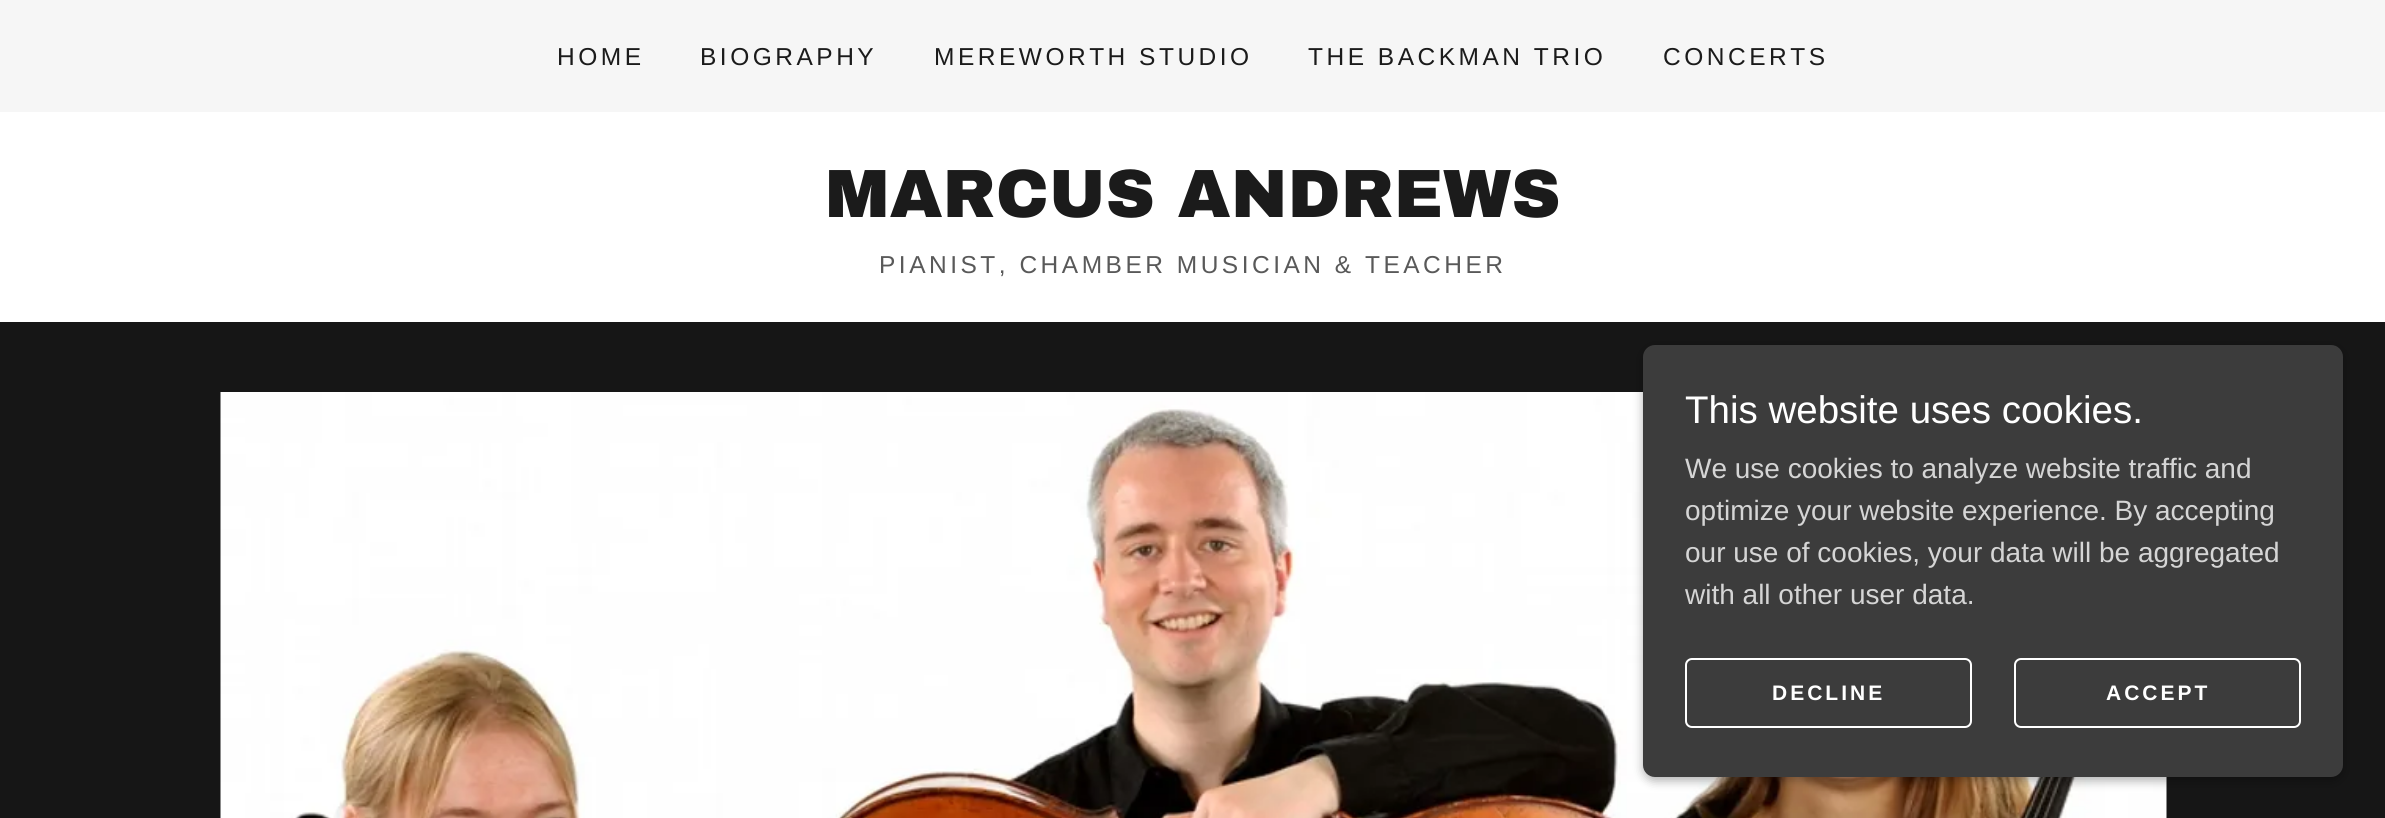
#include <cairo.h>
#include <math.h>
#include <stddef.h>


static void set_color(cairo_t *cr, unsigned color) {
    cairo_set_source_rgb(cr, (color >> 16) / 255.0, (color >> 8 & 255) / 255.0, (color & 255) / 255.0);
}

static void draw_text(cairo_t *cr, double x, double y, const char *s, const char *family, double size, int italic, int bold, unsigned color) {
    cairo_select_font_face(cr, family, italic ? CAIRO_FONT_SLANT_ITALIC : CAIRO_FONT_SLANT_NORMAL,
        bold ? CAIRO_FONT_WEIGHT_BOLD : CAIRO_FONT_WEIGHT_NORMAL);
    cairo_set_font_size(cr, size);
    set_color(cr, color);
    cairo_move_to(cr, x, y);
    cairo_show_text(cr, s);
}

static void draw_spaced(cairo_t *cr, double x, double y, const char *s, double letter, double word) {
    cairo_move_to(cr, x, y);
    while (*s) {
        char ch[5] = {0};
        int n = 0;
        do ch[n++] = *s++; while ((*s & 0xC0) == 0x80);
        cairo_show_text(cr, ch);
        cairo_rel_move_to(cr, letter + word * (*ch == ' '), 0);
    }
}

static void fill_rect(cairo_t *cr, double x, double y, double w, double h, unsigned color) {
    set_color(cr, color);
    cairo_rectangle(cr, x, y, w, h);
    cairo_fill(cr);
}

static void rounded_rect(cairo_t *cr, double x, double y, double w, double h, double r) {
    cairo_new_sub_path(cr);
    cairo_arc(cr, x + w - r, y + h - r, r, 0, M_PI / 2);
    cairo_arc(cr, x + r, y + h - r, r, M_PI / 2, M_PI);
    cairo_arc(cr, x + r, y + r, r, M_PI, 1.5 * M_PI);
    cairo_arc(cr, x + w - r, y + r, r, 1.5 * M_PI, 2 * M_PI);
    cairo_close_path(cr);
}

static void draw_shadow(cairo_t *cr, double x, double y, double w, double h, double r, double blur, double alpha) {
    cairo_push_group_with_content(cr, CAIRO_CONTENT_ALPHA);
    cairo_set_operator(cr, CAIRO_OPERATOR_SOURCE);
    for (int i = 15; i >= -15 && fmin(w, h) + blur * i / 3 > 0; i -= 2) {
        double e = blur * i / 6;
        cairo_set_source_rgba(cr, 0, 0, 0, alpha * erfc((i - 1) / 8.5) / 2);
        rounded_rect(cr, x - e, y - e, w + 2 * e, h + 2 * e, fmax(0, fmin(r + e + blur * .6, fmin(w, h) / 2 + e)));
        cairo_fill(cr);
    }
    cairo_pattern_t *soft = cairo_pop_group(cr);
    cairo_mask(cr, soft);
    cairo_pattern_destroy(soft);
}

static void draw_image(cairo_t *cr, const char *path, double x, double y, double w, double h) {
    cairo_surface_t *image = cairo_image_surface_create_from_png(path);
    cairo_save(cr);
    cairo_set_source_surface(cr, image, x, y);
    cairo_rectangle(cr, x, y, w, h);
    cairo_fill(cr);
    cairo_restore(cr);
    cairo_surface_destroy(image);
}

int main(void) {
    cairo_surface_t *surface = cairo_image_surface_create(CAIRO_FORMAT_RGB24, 2385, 818);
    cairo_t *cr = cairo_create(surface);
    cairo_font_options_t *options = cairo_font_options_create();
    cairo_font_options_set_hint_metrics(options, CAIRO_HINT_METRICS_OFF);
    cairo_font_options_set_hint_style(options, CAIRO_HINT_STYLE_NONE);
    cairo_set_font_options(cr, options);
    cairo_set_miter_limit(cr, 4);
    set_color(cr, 0x161616);
    cairo_paint(cr);
    fill_rect(cr, 0, 112, 2385, 210, 0xFFFFFF);
    fill_rect(cr, 0, 0, 2385, 112, 0xF6F6F6);
    cairo_select_font_face(cr, "Liberation Sans", CAIRO_FONT_SLANT_NORMAL, CAIRO_FONT_WEIGHT_NORMAL);
    cairo_set_font_size(cr, 24.5);
    set_color(cr, 0x1B1B1B);
    draw_spaced(cr, 557, 65, "HOME", 3.5, 0);
    draw_spaced(cr, 700, 65, "BIOGRAPHY", 3.5, 0);
    draw_spaced(cr, 934, 65, "MEREWORTH STUDIO", 3.5, 0);
    draw_spaced(cr, 1308, 65, "THE BACKMAN TRIO", 3.5, 0);
    draw_spaced(cr, 1663, 65, "CONCERTS", 3.5, 0);
    draw_text(cr, 825, 217, "MARCUS ANDREWS", "Archivo Black Black", 68.25, 0, 0, 0x1B1B1B);
    cairo_select_font_face(cr, "Liberation Sans", CAIRO_FONT_SLANT_NORMAL, CAIRO_FONT_WEIGHT_NORMAL);
    cairo_set_font_size(cr, 24.5);
    set_color(cr, 0x595959);
    draw_spaced(cr, 879, 273, "PIANIST, CHAMBER MUSICIAN & TEACHER", 3.5, 0);
    draw_image(cr, "assets/img1.png", 220, 392, 1947, 426);
    set_color(cr, 0x000000);
    draw_shadow(cr, 1643, 348, 700, 433, 12, 5, 0.3);
    set_color(cr, 0x3C3C3C);
    rounded_rect(cr, 1643, 345, 700, 432, 12);
    cairo_fill(cr);
    draw_text(cr, 1685, 423, "This website uses cookies.", "Liberation Sans", 38.5, 0, 0, 0xFFFFFF);
    draw_text(cr, 1685, 478, "We use cookies to analyze website traffic and", "Liberation Sans", 28, 0, 0, 0xD5D5D5);
    draw_text(cr, 1685, 520, "optimize your website experience. By accepting", "Liberation Sans", 28, 0, 0, 0xD5D5D5);
    draw_text(cr, 1685, 562, "our use of cookies, your data will be aggregated", "Liberation Sans", 28, 0, 0, 0xD5D5D5);
    draw_text(cr, 1685, 604, "with all other user data.", "Liberation Sans", 28, 0, 0, 0xD5D5D5);
    rounded_rect(cr, 1686, 659, 285, 68, 6);
    set_color(cr, 0xFFFFFF);
    cairo_stroke(cr);
    cairo_select_font_face(cr, "Liberation Sans", CAIRO_FONT_SLANT_NORMAL, CAIRO_FONT_WEIGHT_BOLD);
    cairo_set_font_size(cr, 21);
    draw_spaced(cr, 1772, 700, "DECLINE", 3, 0);
    rounded_rect(cr, 2015, 659, 285, 68, 6);
    cairo_stroke(cr);
    draw_spaced(cr, 2106, 700, "ACCEPT", 3, 0);
    cairo_surface_write_to_png(surface, "output.png");
    cairo_font_options_destroy(options);
    cairo_destroy(cr);
    cairo_surface_destroy(surface);
    return 0;
}
